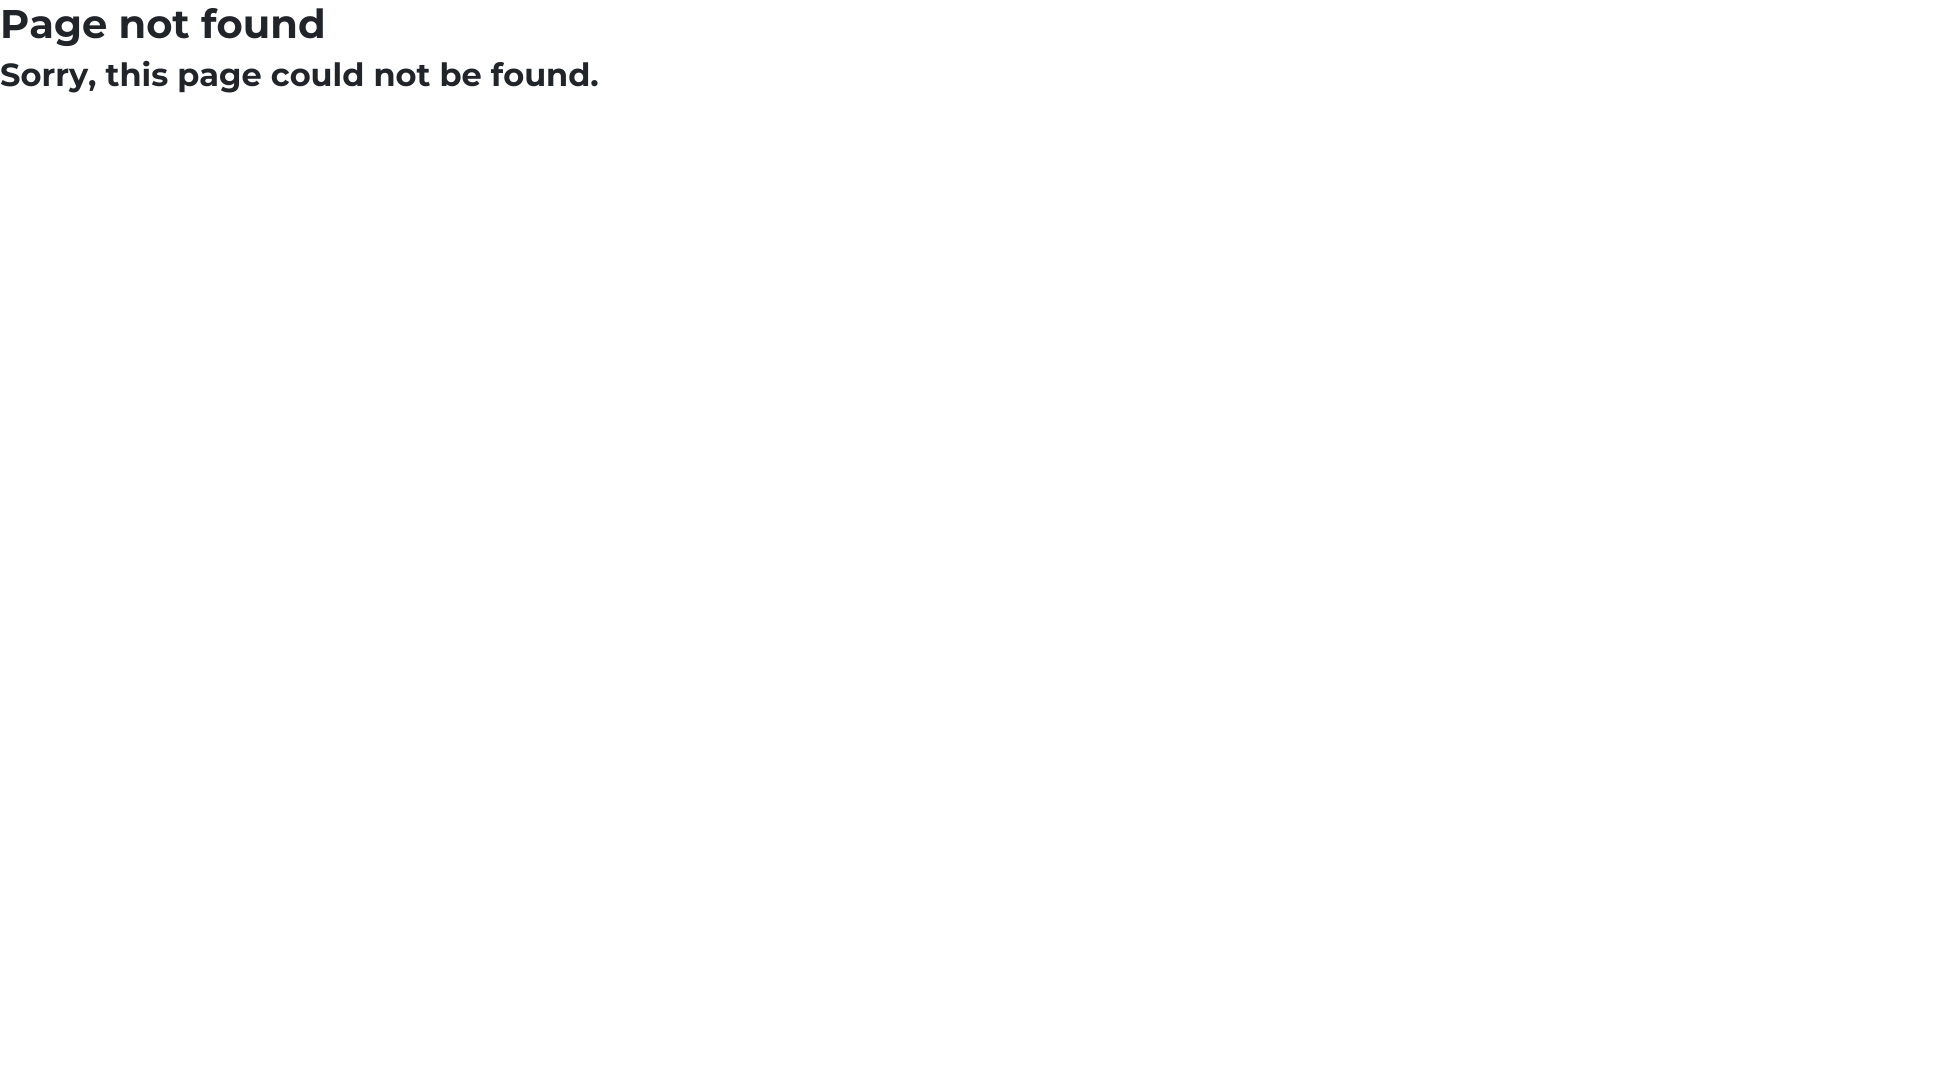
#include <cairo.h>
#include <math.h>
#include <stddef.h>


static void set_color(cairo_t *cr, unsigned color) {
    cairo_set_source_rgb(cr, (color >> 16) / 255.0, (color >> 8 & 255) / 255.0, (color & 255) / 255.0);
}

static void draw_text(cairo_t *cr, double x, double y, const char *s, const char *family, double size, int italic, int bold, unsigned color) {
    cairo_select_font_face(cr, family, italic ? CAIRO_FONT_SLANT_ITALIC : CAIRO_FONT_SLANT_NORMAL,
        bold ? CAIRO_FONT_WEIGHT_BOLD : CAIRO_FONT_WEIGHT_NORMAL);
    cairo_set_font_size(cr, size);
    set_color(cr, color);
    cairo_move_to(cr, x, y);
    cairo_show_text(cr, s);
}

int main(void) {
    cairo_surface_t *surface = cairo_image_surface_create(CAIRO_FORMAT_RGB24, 1940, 1068);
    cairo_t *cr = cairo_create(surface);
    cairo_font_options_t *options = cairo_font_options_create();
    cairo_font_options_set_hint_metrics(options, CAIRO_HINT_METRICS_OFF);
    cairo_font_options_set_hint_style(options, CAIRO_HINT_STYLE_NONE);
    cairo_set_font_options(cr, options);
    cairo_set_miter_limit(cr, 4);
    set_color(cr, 0xFFFFFF);
    cairo_paint(cr);
    draw_text(cr, 0, 38, "Page not found", "Montserrat", 40, 0, 1, 0x212529);
    draw_text(cr, 0, 86, "Sorry, this page could not be found.", "Montserrat", 32, 0, 1, 0x212529);
    cairo_surface_write_to_png(surface, "output.png");
    cairo_font_options_destroy(options);
    cairo_destroy(cr);
    cairo_surface_destroy(surface);
    return 0;
}
